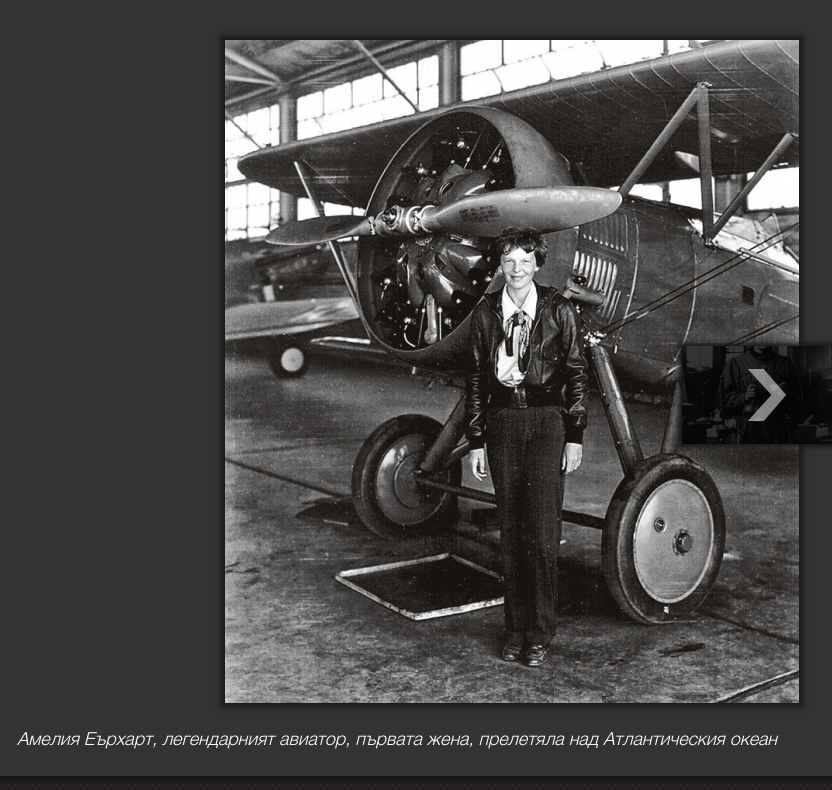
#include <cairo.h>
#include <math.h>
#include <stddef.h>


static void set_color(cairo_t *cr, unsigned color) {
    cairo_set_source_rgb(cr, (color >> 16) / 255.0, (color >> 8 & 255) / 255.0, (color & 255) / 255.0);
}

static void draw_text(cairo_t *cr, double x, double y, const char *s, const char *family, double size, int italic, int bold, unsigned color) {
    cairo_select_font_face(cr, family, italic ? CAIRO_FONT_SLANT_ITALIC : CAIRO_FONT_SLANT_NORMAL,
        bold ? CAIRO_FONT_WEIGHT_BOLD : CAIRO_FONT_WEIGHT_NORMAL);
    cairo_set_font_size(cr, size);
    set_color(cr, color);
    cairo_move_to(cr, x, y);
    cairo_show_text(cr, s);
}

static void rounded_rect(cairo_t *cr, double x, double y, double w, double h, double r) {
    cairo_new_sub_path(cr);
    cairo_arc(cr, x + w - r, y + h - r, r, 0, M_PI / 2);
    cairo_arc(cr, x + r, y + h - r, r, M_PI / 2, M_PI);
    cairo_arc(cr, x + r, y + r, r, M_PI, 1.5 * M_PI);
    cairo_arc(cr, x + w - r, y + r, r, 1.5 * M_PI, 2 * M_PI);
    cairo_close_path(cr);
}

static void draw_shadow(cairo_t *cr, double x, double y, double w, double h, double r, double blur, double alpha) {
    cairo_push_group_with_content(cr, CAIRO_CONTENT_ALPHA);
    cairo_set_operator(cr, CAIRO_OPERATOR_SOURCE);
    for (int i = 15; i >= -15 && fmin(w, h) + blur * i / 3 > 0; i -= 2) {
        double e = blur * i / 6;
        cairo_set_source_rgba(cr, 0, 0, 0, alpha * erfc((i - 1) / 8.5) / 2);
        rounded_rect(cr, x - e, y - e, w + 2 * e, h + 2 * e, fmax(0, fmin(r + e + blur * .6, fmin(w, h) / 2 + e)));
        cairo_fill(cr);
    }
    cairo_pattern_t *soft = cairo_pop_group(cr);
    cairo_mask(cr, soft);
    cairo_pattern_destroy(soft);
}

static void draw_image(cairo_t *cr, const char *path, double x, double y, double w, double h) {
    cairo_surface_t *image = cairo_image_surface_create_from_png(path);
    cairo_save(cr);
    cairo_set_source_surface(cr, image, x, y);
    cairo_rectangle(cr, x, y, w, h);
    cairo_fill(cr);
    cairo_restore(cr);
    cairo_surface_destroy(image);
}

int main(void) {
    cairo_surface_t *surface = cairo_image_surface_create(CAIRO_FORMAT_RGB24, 832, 790);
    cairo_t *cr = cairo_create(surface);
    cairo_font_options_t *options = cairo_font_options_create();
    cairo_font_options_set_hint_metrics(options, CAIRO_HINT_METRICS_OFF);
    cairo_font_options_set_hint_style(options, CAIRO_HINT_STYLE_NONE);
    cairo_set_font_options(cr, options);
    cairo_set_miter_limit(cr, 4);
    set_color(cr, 0x333333);
    cairo_paint(cr);
    set_color(cr, 0x171717);
    draw_shadow(cr, 221, 36, 582, 671, 0, 3.5, 1);
    draw_image(cr, "assets/img3.png", 225, 40, 574, 663);
    draw_shadow(cr, 679, 343, 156, 104, 0, 2.5, 1);
    draw_image(cr, "assets/img1.png", 682, 346, 150, 98);
    draw_image(cr, "assets/img2.png", 748, 369, 38, 52);
    draw_text(cr, 17, 745, "Амелия Еърхарт, легендарният авиатор, първата жена, прелетяла над Атлантическия океан", "Helvetica Neue Light", 18, 1, 0, 0xFFFFFF);
    draw_image(cr, "assets/img4.png", 0, 776, 832, 14);
    cairo_surface_write_to_png(surface, "output.png");
    cairo_font_options_destroy(options);
    cairo_destroy(cr);
    cairo_surface_destroy(surface);
    return 0;
}
